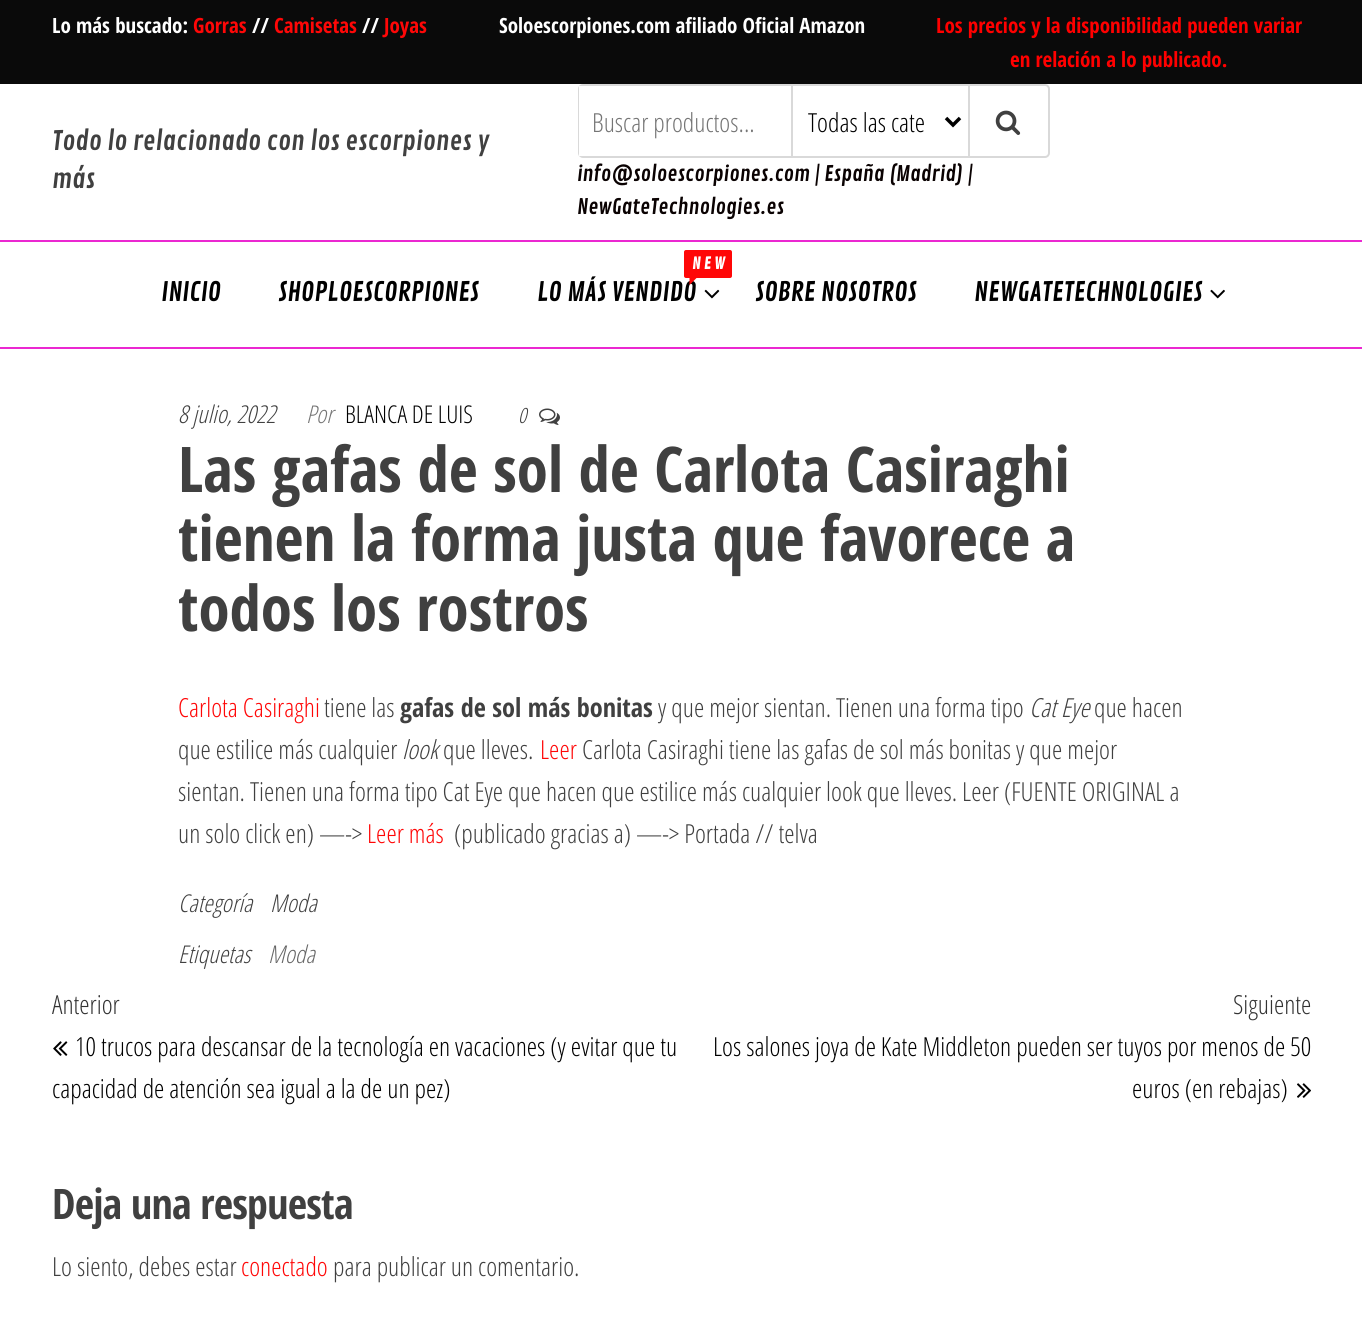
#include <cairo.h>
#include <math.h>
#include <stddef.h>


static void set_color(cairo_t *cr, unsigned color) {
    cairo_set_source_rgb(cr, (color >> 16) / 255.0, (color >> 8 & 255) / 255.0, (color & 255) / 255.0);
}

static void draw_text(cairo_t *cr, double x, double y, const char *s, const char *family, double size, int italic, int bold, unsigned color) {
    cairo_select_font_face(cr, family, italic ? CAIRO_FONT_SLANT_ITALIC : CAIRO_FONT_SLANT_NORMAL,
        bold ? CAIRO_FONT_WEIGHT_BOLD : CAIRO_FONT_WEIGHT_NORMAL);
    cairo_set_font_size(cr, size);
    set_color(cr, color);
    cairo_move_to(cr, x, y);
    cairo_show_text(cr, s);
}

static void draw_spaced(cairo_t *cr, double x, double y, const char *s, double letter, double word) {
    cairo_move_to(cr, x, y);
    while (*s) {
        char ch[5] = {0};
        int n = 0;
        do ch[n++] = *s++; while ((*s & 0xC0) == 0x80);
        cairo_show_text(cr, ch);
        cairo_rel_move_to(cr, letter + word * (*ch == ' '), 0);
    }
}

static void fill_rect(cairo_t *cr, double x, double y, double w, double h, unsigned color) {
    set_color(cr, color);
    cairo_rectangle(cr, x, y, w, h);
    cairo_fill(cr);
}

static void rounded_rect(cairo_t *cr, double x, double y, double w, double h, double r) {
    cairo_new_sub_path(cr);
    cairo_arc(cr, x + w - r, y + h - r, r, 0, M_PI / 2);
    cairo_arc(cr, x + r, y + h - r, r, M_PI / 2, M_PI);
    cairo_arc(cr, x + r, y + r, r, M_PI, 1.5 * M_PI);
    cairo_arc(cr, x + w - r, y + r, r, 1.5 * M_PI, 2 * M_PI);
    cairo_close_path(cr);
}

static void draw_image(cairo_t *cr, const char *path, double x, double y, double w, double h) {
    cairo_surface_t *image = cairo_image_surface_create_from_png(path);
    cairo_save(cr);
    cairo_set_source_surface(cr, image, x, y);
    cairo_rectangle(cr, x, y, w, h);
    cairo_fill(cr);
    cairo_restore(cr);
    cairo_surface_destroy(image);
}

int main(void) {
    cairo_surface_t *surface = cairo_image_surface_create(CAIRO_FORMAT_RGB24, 1362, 1332);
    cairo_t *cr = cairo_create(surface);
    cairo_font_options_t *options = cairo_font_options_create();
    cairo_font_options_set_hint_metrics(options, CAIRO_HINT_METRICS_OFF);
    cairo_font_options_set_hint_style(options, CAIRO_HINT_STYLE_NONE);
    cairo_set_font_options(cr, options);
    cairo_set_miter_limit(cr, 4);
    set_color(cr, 0xFFFFFF);
    cairo_paint(cr);
    fill_rect(cr, 0, 0, 1362, 84, 0x0A0A0A);
    draw_text(cr, 52, 33, "Lo más buscado:", "Open Sans Condensed", 21, 0, 1, 0xFFFFFF);
    draw_text(cr, 193, 33, "Gorras", "Open Sans Condensed", 21, 0, 1, 0xFF0707);
    draw_text(cr, 252, 33, "//", "Open Sans Condensed", 21, 0, 1, 0xFFFFFF);
    draw_text(cr, 274, 33, "Camisetas", "Open Sans Condensed", 21, 0, 1, 0xFF0707);
    draw_text(cr, 362, 33, "//", "Open Sans Condensed", 21, 0, 1, 0xFFFFFF);
    draw_text(cr, 384, 33, "Joyas", "Open Sans Condensed", 21, 0, 1, 0xFF0707);
    draw_text(cr, 499, 33, "Soloescorpiones.com afiliado Oficial Amazon", "Open Sans Condensed", 21, 0, 1, 0xFFFFFF);
    draw_text(cr, 936, 33, "Los precios y la disponibilidad pueden variar", "Open Sans Condensed", 21, 0, 1, 0xFF0000);
    draw_text(cr, 1010, 67, "en relación a lo publicado.", "Open Sans Condensed", 21, 0, 1, 0xFF0000);
    draw_text(cr, 52, 150, "Todo lo relacionado con los escorpiones y", "Contrail One", 26.25, 0, 0, 0x404040);
    draw_text(cr, 52, 188, "más", "Contrail One", 26.25, 0, 0, 0x404040);
    rounded_rect(cr, 579, 85, 470, 72, 4);
    set_color(cr, 0xD9D9D9);
    cairo_stroke(cr);
    fill_rect(cr, 579, 86, 4, 70, 0xFFFFFF);
    fill_rect(cr, 791, 86, 2, 70, 0xD9D9D9);
    draw_text(cr, 592, 132, "Buscar productos...", "Open Sans Condensed Light", 26.25, 0, 0, 0x757575);
    cairo_new_path(cr);
    cairo_move_to(cr, 946, 118);
    cairo_line_to(cr, 953, 125);
    cairo_line_to(cr, 960, 118);
    set_color(cr, 0x000000);
    cairo_set_line_width(cr, 3.5);
    cairo_stroke(cr);
    draw_text(cr, 808, 132, "Todas las cate", "Open Sans Condensed Light", 26.25, 0, 0, 0x000000);
    fill_rect(cr, 968, 86, 2, 70, 0xD9D9D9);
    draw_image(cr, "assets/img1.png", 995, 110, 26, 25);
    draw_text(cr, 577, 181, "info@soloescorpiones.com | España (Madrid) |", "Contrail One", 21, 0, 0, 0x0A0202);
    draw_text(cr, 577, 214, "NewGateTechnologies.es", "Contrail One", 21, 0, 0, 0x0A0202);
    fill_rect(cr, 0, 240, 1362, 2, 0xEB28D1);
    fill_rect(cr, 0, 347, 1362, 2, 0xEB28D1);
    draw_text(cr, 161, 301, "INICIO", "Contrail One", 26.25, 0, 0, 0x000000);
    draw_text(cr, 278, 301, "SHOPLOESCORPIONES", "Contrail One", 26.25, 0, 0, 0x000000);
    draw_text(cr, 537, 301, "LO MÁS VENDIDO", "Contrail One", 26.25, 0, 0, 0x000000);
    set_color(cr, 0xFF0707);
    rounded_rect(cr, 684, 250, 48, 28, 2);
    cairo_fill(cr);
    draw_text(cr, 692, 269, "N E W", "Contrail One", 16, 0, 1, 0xFFFFFF);
    set_color(cr, 0xFF0707);
    cairo_new_path(cr);
    cairo_move_to(cr, 689.5, 276.5);
    cairo_line_to(cr, 698, 276.5);
    cairo_line_to(cr, 689.5, 285);
    cairo_close_path(cr);
    cairo_fill(cr);
    draw_image(cr, "assets/img2.png", 704, 289, 16, 10);
    draw_text(cr, 755, 301, "SOBRE NOSOTROS", "Contrail One", 26.25, 0, 0, 0x000000);
    draw_text(cr, 974, 301, "NEWGATETECHNOLOGIES", "Contrail One", 26.25, 0, 0, 0x000000);
    draw_image(cr, "assets/img3.png", 1210, 289, 15, 10);
    draw_text(cr, 178, 423, "8 julio, 2022", "Open Sans Condensed Light", 24.5, 1, 0, 0x404040);
    draw_text(cr, 306, 423, "Por", "Open Sans Condensed Light", 24.5, 1, 0, 0x757575);
    draw_text(cr, 345, 423, "BLANCA DE LUIS", "Open Sans Condensed Light", 24.5, 0, 0, 0x000000);
    draw_text(cr, 518, 423, "0", "Open Sans Condensed Light", 21, 1, 0, 0x404040);
    draw_image(cr, "assets/img4.png", 539, 408, 21, 17);
    draw_text(cr, 178, 492, "Las gafas de sol de Carlota Casiraghi", "Open Sans Condensed", 63, 0, 1, 0x404040);
    draw_text(cr, 178, 561, "tienen la forma justa que favorece a", "Open Sans Condensed", 63, 0, 1, 0x404040);
    draw_text(cr, 178, 631, "todos los rostros", "Open Sans Condensed", 63, 0, 1, 0x404040);
    draw_text(cr, 178, 717, "Carlota Casiraghi", "Open Sans Condensed Light", 26.25, 0, 0, 0xFF0707);
    draw_text(cr, 324, 717, "tiene las", "Open Sans Condensed Light", 26.25, 0, 0, 0x404040);
    draw_text(cr, 400, 717, "gafas de sol más bonitas", "Open Sans Condensed", 26.25, 0, 1, 0x404040);
    draw_text(cr, 658, 717, "y que mejor sientan. Tienen una forma tipo", "Open Sans Condensed Light", 26.25, 0, 0, 0x404040);
    draw_text(cr, 1029, 717, "Cat Eye", "Open Sans Condensed Light", 26.25, 1, 0, 0x404040);
    draw_text(cr, 1094, 717, "que hacen", "Open Sans Condensed Light", 26.25, 0, 0, 0x404040);
    draw_text(cr, 178, 759, "que estilice más cualquier", "Open Sans Condensed Light", 26.25, 0, 0, 0x404040);
    draw_text(cr, 402, 759, "look", "Open Sans Condensed Light", 26.25, 1, 0, 0x404040);
    draw_text(cr, 443, 759, "que lleves.", "Open Sans Condensed Light", 26.25, 0, 0, 0x404040);
    draw_text(cr, 540, 759, "Leer", "Open Sans Condensed Light", 26.25, 0, 0, 0xFF0707);
    draw_text(cr, 582, 759, "Carlota Casiraghi tiene las gafas de sol más bonitas y que mejor", "Open Sans Condensed Light", 26.25, 0, 0, 0x404040);
    draw_text(cr, 178, 801, "sientan. Tienen una forma tipo Cat Eye que hacen que estilice más cualquier look que lleves. Leer (FUENTE ORIGINAL a", "Open Sans Condensed Light", 26.25, 0, 0, 0x404040);
    draw_text(cr, 178, 843, "un solo click en) —->", "Open Sans Condensed Light", 26.25, 0, 0, 0x404040);
    draw_text(cr, 367, 843, "Leer más", "Open Sans Condensed Light", 26.25, 0, 0, 0xFF0707);
    draw_text(cr, 454, 843, "(publicado gracias a) —-> Portada // telva", "Open Sans Condensed Light", 26.25, 0, 0, 0x404040);
    draw_text(cr, 178, 912, "Categoría", "Open Sans Condensed Light", 24.5, 1, 0, 0x404040);
    draw_text(cr, 270, 912, "Moda", "Open Sans Condensed Light", 24.5, 1, 0, 0x404040);
    draw_text(cr, 178, 963, "Etiquetas", "Open Sans Condensed Light", 24.5, 1, 0, 0x404040);
    draw_text(cr, 268, 963, "Moda", "Open Sans Condensed Light", 24.5, 1, 0, 0x666666);
    draw_text(cr, 52, 1014, "Anterior", "Open Sans Condensed Light", 26.25, 0, 0, 0x333333);
    draw_image(cr, "assets/img5.png", 53, 1041, 15, 15);
    draw_text(cr, 75, 1056, "10 trucos para descansar de la tecnología en vacaciones (y evitar que tu", "Open Sans Condensed Light", 26.25, 0, 0, 0x000000);
    draw_text(cr, 52, 1098, "capacidad de atención sea igual a la de un pez)", "Open Sans Condensed Light", 26.25, 0, 0, 0x000000);
    draw_text(cr, 1233, 1014, "Siguiente", "Open Sans Condensed Light", 26.25, 0, 0, 0x333333);
    draw_text(cr, 713, 1056, "Los salones joya de Kate Middleton pueden ser tuyos por menos de 50", "Open Sans Condensed Light", 26.25, 0, 0, 0x000000);
    draw_text(cr, 1132, 1098, "euros (en rebajas)", "Open Sans Condensed Light", 26.25, 0, 0, 0x000000);
    draw_image(cr, "assets/img6.png", 1297, 1083, 14, 15);
    cairo_select_font_face(cr, "Open Sans Condensed", CAIRO_FONT_SLANT_NORMAL, CAIRO_FONT_WEIGHT_BOLD);
    cairo_set_font_size(cr, 42);
    set_color(cr, 0x404040);
    draw_spaced(cr, 52, 1219, "Deja una respuesta", -0.8, 0);
    draw_text(cr, 52, 1276, "Lo siento, debes estar", "Open Sans Condensed Light", 26.25, 0, 0, 0x404040);
    draw_text(cr, 241, 1276, "conectado", "Open Sans Condensed Light", 26.25, 0, 0, 0xFF0707);
    draw_text(cr, 333, 1276, "para publicar un comentario.", "Open Sans Condensed Light", 26.25, 0, 0, 0x404040);
    cairo_surface_write_to_png(surface, "output.png");
    cairo_font_options_destroy(options);
    cairo_destroy(cr);
    cairo_surface_destroy(surface);
    return 0;
}
